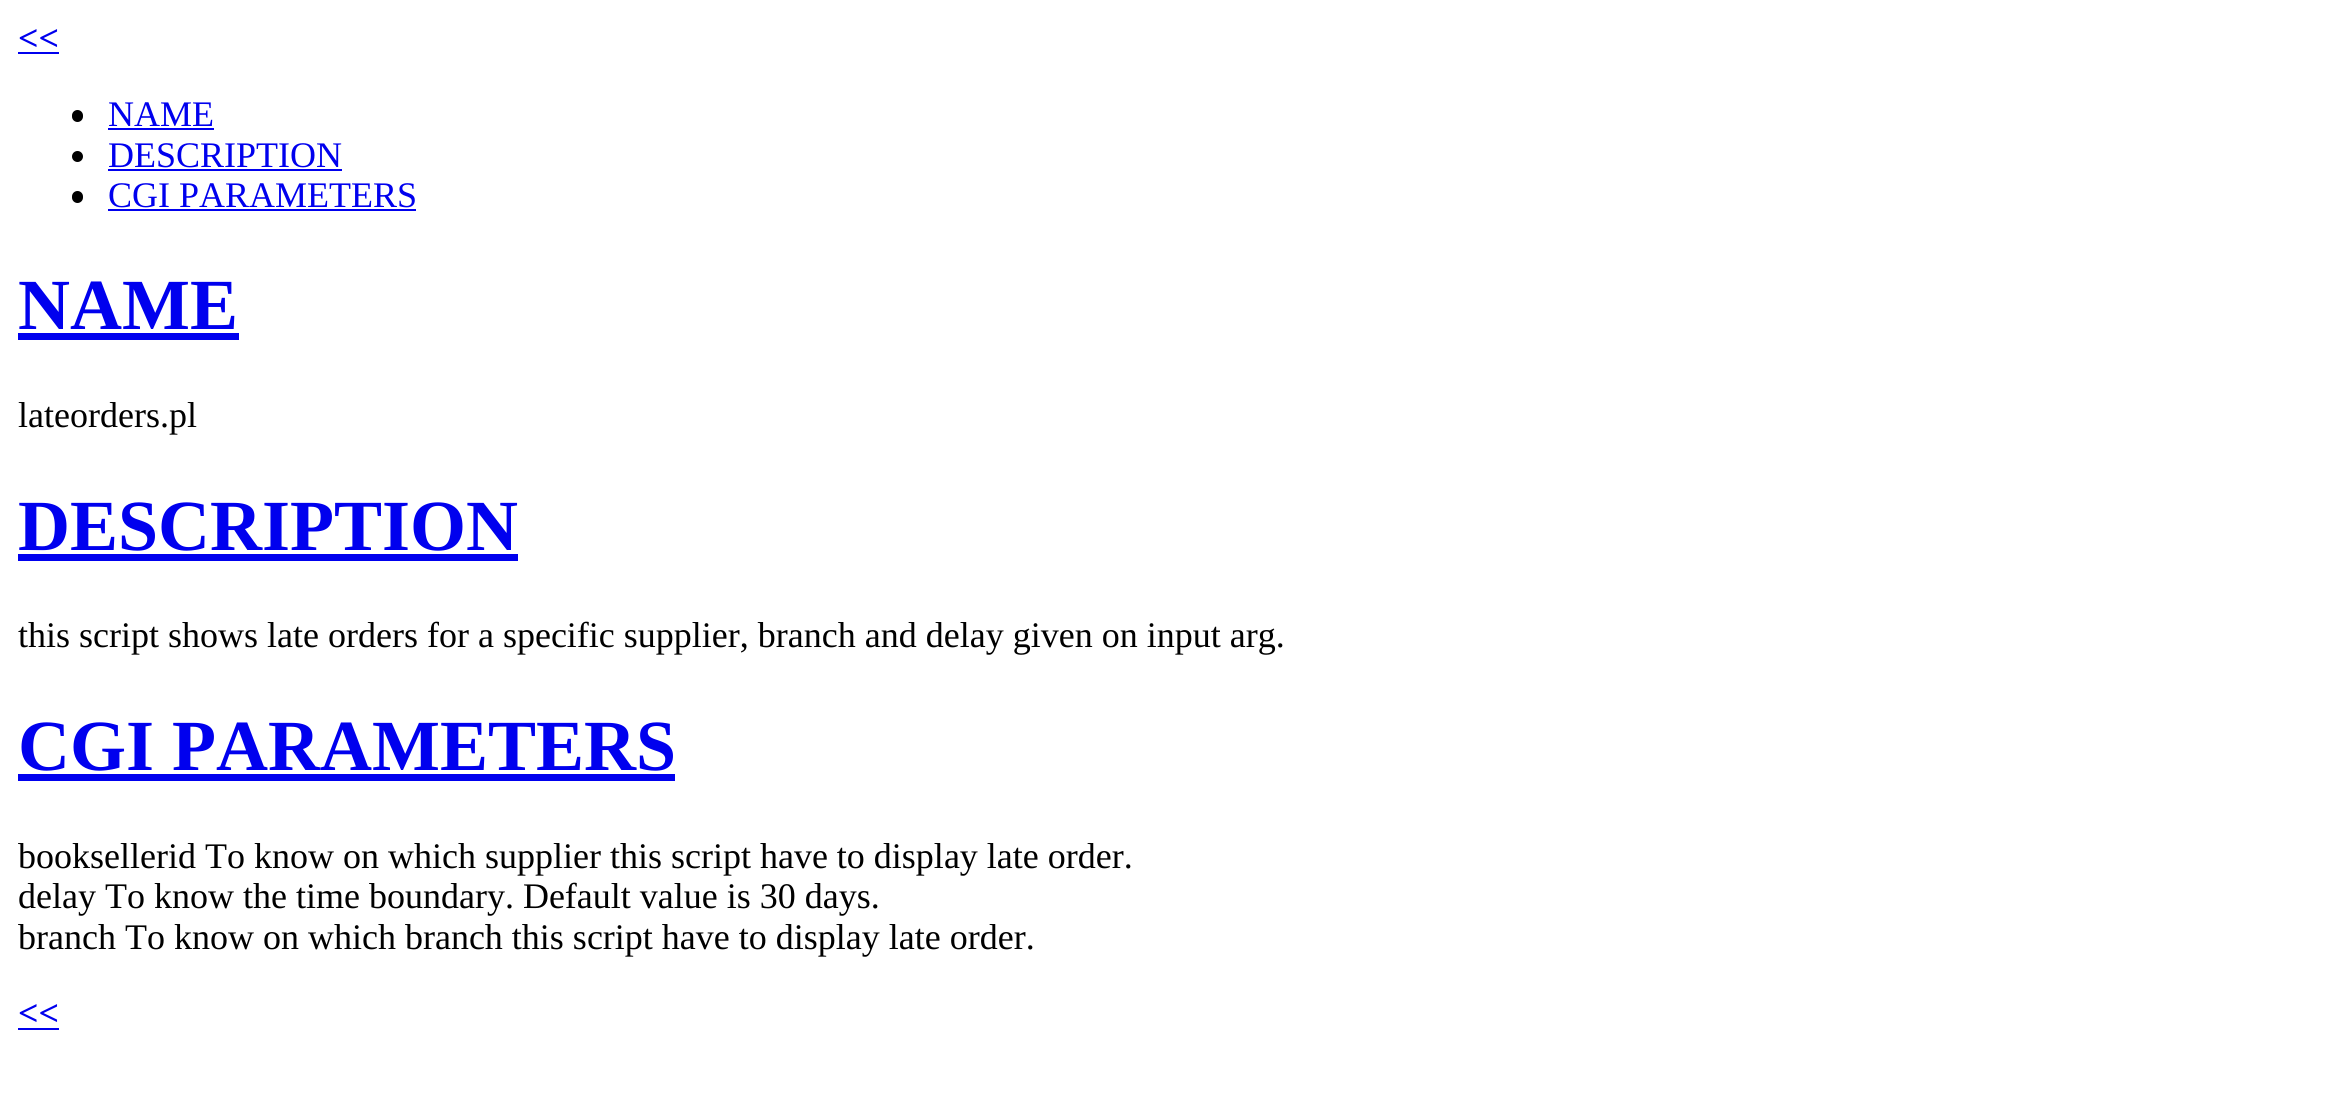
#include <cairo.h>
#include <math.h>
#include <stddef.h>


static void set_color(cairo_t *cr, unsigned color) {
    cairo_set_source_rgb(cr, (color >> 16) / 255.0, (color >> 8 & 255) / 255.0, (color & 255) / 255.0);
}

static void draw_text(cairo_t *cr, double x, double y, const char *s, const char *family, double size, int italic, int bold, unsigned color) {
    cairo_select_font_face(cr, family, italic ? CAIRO_FONT_SLANT_ITALIC : CAIRO_FONT_SLANT_NORMAL,
        bold ? CAIRO_FONT_WEIGHT_BOLD : CAIRO_FONT_WEIGHT_NORMAL);
    cairo_set_font_size(cr, size);
    set_color(cr, color);
    cairo_move_to(cr, x, y);
    cairo_show_text(cr, s);
}

static void fill_rect(cairo_t *cr, double x, double y, double w, double h, unsigned color) {
    set_color(cr, color);
    cairo_rectangle(cr, x, y, w, h);
    cairo_fill(cr);
}

static void rounded_rect(cairo_t *cr, double x, double y, double w, double h, double r) {
    cairo_new_sub_path(cr);
    cairo_arc(cr, x + w - r, y + h - r, r, 0, M_PI / 2);
    cairo_arc(cr, x + r, y + h - r, r, M_PI / 2, M_PI);
    cairo_arc(cr, x + r, y + r, r, M_PI, 1.5 * M_PI);
    cairo_arc(cr, x + w - r, y + r, r, 1.5 * M_PI, 2 * M_PI);
    cairo_close_path(cr);
}

int main(void) {
    cairo_surface_t *surface = cairo_image_surface_create(CAIRO_FORMAT_RGB24, 2347, 1093);
    cairo_t *cr = cairo_create(surface);
    cairo_font_options_t *options = cairo_font_options_create();
    cairo_font_options_set_hint_metrics(options, CAIRO_HINT_METRICS_OFF);
    cairo_font_options_set_hint_style(options, CAIRO_HINT_STYLE_NONE);
    cairo_set_font_options(cr, options);
    cairo_set_miter_limit(cr, 4);
    set_color(cr, 0xFFFFFF);
    cairo_paint(cr);
    draw_text(cr, 18, 50, "<<", "Liberation Serif", 36, 0, 1, 0x0000EE);
    fill_rect(cr, 18, 52, 41, 2, 0x0000EE);
    set_color(cr, 0x000000);
    rounded_rect(cr, 72, 110, 11, 12, 5.5);
    cairo_fill(cr);
    draw_text(cr, 108, 126, "NAME", "Liberation Serif", 36, 0, 0, 0x0000EE);
    fill_rect(cr, 108, 128, 106, 2, 0x0000EE);
    set_color(cr, 0x000000);
    cairo_new_path(cr);
    cairo_arc(cr, 77.5, 156.5, 5.5, 0, 2 * M_PI);
    cairo_fill(cr);
    draw_text(cr, 108, 167, "DESCRIPTION", "Liberation Serif", 36, 0, 0, 0x0000EE);
    fill_rect(cr, 108, 169, 234, 2, 0x0000EE);
    set_color(cr, 0x000000);
    rounded_rect(cr, 72, 191, 11, 12, 5.5);
    cairo_fill(cr);
    draw_text(cr, 108, 207, "CGI PARAMETERS", "Liberation Serif", 36, 0, 0, 0x0000EE);
    fill_rect(cr, 108, 209, 308, 2, 0x0000EE);
    draw_text(cr, 18, 329, "NAME", "Liberation Serif", 72, 0, 1, 0x0000EE);
    fill_rect(cr, 18, 333, 221, 7, 0x0000EE);
    draw_text(cr, 18, 427, "lateorders.pl", "Liberation Serif", 36, 0, 0, 0x000000);
    draw_text(cr, 18, 550, "DESCRIPTION", "Liberation Serif", 72, 0, 1, 0x0000EE);
    fill_rect(cr, 18, 554, 500, 7, 0x0000EE);
    draw_text(cr, 18, 647, "this script shows late orders for a specific supplier, branch and delay given on input arg.", "Liberation Serif", 36, 0, 0, 0x000000);
    draw_text(cr, 18, 770, "CGI PARAMETERS", "Liberation Serif", 72, 0, 1, 0x0000EE);
    fill_rect(cr, 18, 774, 657, 7, 0x0000EE);
    draw_text(cr, 18, 868, "booksellerid To know on which supplier this script have to display late order.", "Liberation Serif", 36, 0, 0, 0x000000);
    draw_text(cr, 18, 908, "delay To know the time boundary. Default value is 30 days.", "Liberation Serif", 36, 0, 0, 0x000000);
    draw_text(cr, 18, 949, "branch To know on which branch this script have to display late order.", "Liberation Serif", 36, 0, 0, 0x000000);
    draw_text(cr, 18, 1025, "<<", "Liberation Serif", 36, 0, 1, 0x0000EE);
    fill_rect(cr, 18, 1028, 41, 2, 0x0000EE);
    cairo_surface_write_to_png(surface, "output.png");
    cairo_font_options_destroy(options);
    cairo_destroy(cr);
    cairo_surface_destroy(surface);
    return 0;
}
